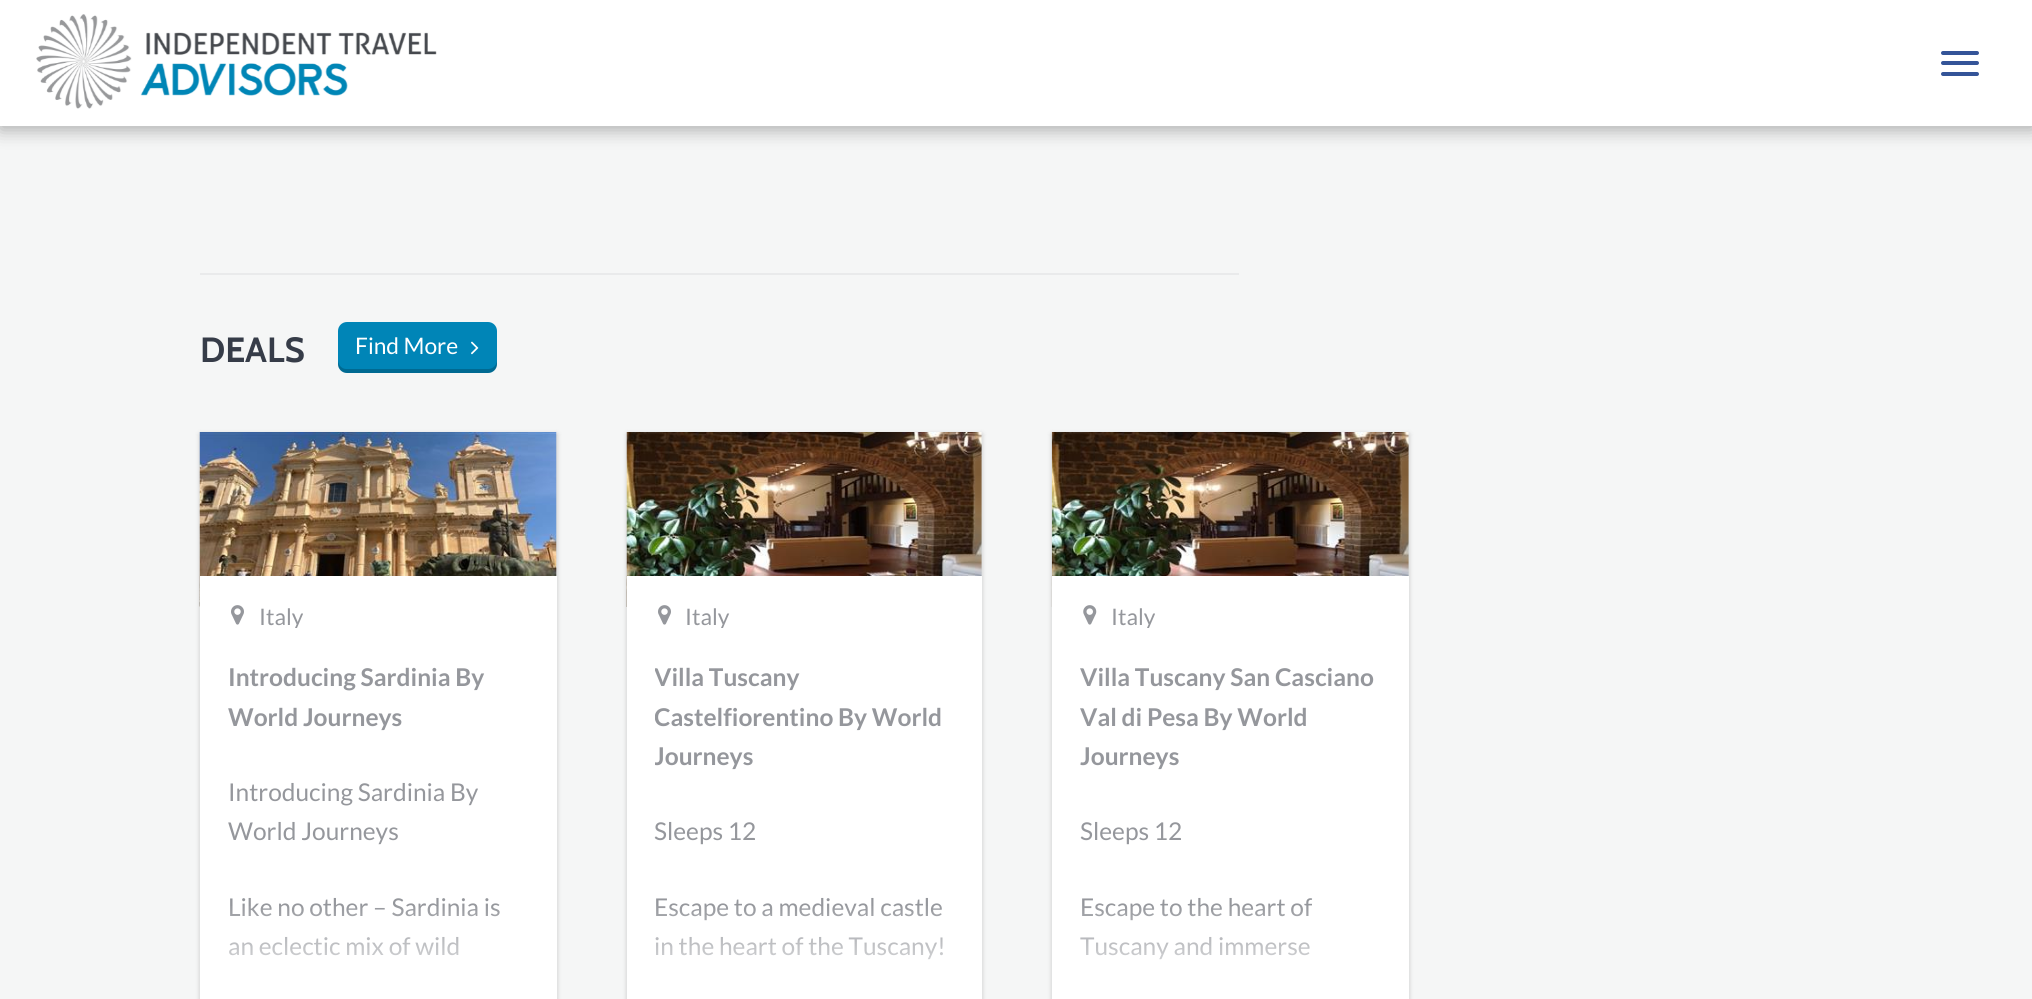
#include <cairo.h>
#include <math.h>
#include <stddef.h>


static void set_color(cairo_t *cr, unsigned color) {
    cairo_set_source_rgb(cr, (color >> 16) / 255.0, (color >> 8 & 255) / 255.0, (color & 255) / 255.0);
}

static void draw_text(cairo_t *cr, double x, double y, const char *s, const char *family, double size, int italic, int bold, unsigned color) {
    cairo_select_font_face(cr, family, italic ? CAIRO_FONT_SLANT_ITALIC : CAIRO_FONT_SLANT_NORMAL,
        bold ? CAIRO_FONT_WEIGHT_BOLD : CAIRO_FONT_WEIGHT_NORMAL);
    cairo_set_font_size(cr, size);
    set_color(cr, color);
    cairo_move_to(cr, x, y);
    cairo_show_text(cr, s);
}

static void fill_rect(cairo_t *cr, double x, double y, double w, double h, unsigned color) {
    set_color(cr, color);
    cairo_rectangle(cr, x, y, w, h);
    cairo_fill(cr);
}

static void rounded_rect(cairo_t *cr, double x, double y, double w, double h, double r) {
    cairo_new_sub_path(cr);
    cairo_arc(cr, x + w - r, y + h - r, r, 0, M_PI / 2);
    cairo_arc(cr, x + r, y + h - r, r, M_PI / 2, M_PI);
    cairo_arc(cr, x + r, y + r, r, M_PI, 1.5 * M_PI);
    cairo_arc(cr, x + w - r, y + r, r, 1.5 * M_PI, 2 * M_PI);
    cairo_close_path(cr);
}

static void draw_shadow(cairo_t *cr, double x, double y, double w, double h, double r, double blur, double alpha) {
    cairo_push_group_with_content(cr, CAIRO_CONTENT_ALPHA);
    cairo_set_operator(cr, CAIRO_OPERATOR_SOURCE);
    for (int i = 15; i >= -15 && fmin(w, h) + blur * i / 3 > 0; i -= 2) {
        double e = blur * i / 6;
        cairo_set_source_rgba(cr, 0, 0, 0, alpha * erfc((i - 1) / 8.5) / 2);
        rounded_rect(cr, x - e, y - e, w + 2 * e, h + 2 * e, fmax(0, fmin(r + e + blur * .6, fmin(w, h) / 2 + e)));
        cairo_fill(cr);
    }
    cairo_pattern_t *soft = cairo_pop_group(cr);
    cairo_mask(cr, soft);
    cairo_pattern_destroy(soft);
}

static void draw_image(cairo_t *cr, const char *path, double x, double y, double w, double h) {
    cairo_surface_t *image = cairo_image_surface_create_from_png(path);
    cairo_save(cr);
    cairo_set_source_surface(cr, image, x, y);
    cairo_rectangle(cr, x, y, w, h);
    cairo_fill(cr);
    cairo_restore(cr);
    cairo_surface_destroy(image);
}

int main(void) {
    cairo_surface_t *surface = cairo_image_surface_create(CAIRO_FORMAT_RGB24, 2032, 999);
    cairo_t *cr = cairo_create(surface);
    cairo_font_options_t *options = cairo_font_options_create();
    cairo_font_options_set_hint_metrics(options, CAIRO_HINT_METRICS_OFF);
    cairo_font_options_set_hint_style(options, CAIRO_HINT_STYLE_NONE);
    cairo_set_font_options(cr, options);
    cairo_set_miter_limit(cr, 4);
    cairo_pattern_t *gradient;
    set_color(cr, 0xF5F6F6);
    cairo_paint(cr);
    set_color(cr, 0x000000);
    draw_shadow(cr, 0, -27, 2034, 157, 0, 9, 0.3);
    fill_rect(cr, 0, 0, 2032, 126, 0xFFFFFF);
    draw_image(cr, "assets/img1.png", 36, 14, 401, 95);
    set_color(cr, 0x345498);
    rounded_rect(cr, 1941, 51, 38, 4, 2);
    cairo_fill(cr);
    rounded_rect(cr, 1941, 61, 38, 4, 2);
    cairo_fill(cr);
    rounded_rect(cr, 1941, 72, 38, 4, 2);
    cairo_fill(cr);
    fill_rect(cr, 200, 273, 1039, 2, 0xE9EAEB);
    draw_text(cr, 200, 362, "DEALS", "Cabin", 35, 0, 1, 0x363C48);
    set_color(cr, 0x0085B7);
    rounded_rect(cr, 338, 322, 159, 51, 9);
    cairo_fill(cr);
    cairo_set_source_rgba(cr, 0, 0, 0, 0.2);
    cairo_new_path(cr);
    cairo_move_to(cr, 338, 360);
    cairo_line_to(cr, 338, 364);
    cairo_curve_to(cr, 338, 369, 342, 373, 347, 373);
    cairo_line_to(cr, 488, 373);
    cairo_curve_to(cr, 493, 373, 497, 369, 497, 364);
    cairo_line_to(cr, 497, 360);
    cairo_curve_to(cr, 497, 365, 493, 369, 488, 369);
    cairo_line_to(cr, 346, 369);
    cairo_curve_to(cr, 342, 369, 338, 365, 338, 360);
    cairo_close_path(cr);
    cairo_fill(cr);
    draw_text(cr, 355, 354, "Find More", "Lato", 22.75, 0, 0, 0xFFFFFF);
    draw_image(cr, "assets/img2.png", 471, 341, 8, 14);
    set_color(cr, 0x000000);
    draw_shadow(cr, 200, 434, 357, 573, 0, 2.5, 0.2);
    draw_image(cr, "assets/img3.png", 199, 432, 358, 175);
    fill_rect(cr, 200, 576, 357, 423, 0xFFFFFF);
    draw_image(cr, "assets/img4.png", 231, 605, 13, 20);
    cairo_save(cr);
    cairo_rectangle(cr, 228, 604, 75, 24);
    cairo_clip(cr);
    draw_text(cr, 259, 625, "Italy", "Lato", 22.75, 0, 0, 0x95979C);
    cairo_restore(cr);
    draw_text(cr, 228, 686, "Introducing Sardinia By", "Lato", 24.5, 0, 1, 0x95979C);
    draw_text(cr, 228, 726, "World Journeys", "Lato", 24.5, 0, 1, 0x95979C);
    draw_text(cr, 228, 801, "Introducing Sardinia By", "Lato", 24.5, 0, 0, 0x95979C);
    draw_text(cr, 228, 840, "World Journeys", "Lato", 24.5, 0, 0, 0x95979C);
    draw_text(cr, 228, 916, "Like no other – Sardinia is", "Lato", 24.5, 0, 0, 0x95979C);
    draw_text(cr, 228, 955, "an eclectic mix of wild", "Lato", 24.5, 0, 0, 0x95979C);
    gradient = cairo_pattern_create_linear(378, 903, 378, 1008);
    cairo_pattern_add_color_stop_rgba(gradient, 0, 1, 1, 1, 0);
    cairo_pattern_add_color_stop_rgba(gradient, 0.99, 1, 1, 1, 1);
    cairo_set_source(cr, gradient);
    cairo_pattern_destroy(gradient);
    cairo_rectangle(cr, 228, 906, 271, 50);
    cairo_fill(cr);
    set_color(cr, 0x000000);
    draw_shadow(cr, 627, 434, 355, 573, 0, 2.5, 0.2);
    draw_image(cr, "assets/img5.png", 626, 432, 356, 175);
    fill_rect(cr, 627, 576, 355, 423, 0xFFFFFF);
    draw_image(cr, "assets/img4.png", 658, 605, 13, 20);
    cairo_save(cr);
    cairo_rectangle(cr, 655, 604, 75, 24);
    cairo_clip(cr);
    draw_text(cr, 685, 625, "Italy", "Lato", 22.75, 0, 0, 0x95979C);
    cairo_restore(cr);
    cairo_save(cr);
    cairo_rectangle(cr, 655, 658, 299, 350);
    cairo_clip(cr);
    draw_text(cr, 654, 686, "Villa Tuscany", "Lato", 24.5, 0, 1, 0x95979C);
    draw_text(cr, 654, 726, "Castelfiorentino By World", "Lato", 24.5, 0, 1, 0x95979C);
    draw_text(cr, 654, 765, "Journeys", "Lato", 24.5, 0, 1, 0x95979C);
    cairo_restore(cr);
    draw_text(cr, 654, 840, "Sleeps 12", "Lato", 24.5, 0, 0, 0x95979C);
    draw_text(cr, 654, 916, "Escape to a medieval castle", "Lato", 24.5, 0, 0, 0x95979C);
    draw_text(cr, 654, 955, "in the heart of the Tuscany!", "Lato", 24.5, 0, 0, 0x95979C);
    gradient = cairo_pattern_create_linear(804, 903, 804, 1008);
    cairo_pattern_add_color_stop_rgba(gradient, 0, 1, 1, 1, 0);
    cairo_pattern_add_color_stop_rgba(gradient, 0.99, 1, 1, 1, 1);
    cairo_set_source(cr, gradient);
    cairo_pattern_destroy(gradient);
    cairo_rectangle(cr, 655, 906, 288, 54);
    cairo_fill(cr);
    set_color(cr, 0x000000);
    draw_shadow(cr, 1052, 434, 357, 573, 0, 2.5, 0.2);
    draw_image(cr, "assets/img6.png", 1051, 432, 358, 175);
    fill_rect(cr, 1052, 576, 357, 423, 0xFFFFFF);
    draw_image(cr, "assets/img7.png", 1083, 605, 14, 20);
    cairo_save(cr);
    cairo_rectangle(cr, 1080, 604, 75, 24);
    cairo_clip(cr);
    draw_text(cr, 1111, 625, "Italy", "Lato", 22.75, 0, 0, 0x95979C);
    cairo_restore(cr);
    draw_text(cr, 1080, 686, "Villa Tuscany San Casciano", "Lato", 24.5, 0, 1, 0x95979C);
    draw_text(cr, 1080, 726, "Val di Pesa By World", "Lato", 24.5, 0, 1, 0x95979C);
    draw_text(cr, 1080, 765, "Journeys", "Lato", 24.5, 0, 1, 0x95979C);
    draw_text(cr, 1080, 840, "Sleeps 12", "Lato", 24.5, 0, 0, 0x95979C);
    draw_text(cr, 1080, 916, "Escape to the heart of", "Lato", 24.5, 0, 0, 0x95979C);
    draw_text(cr, 1080, 955, "Tuscany and immerse", "Lato", 24.5, 0, 0, 0x95979C);
    gradient = cairo_pattern_create_linear(1230, 903, 1230, 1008);
    cairo_pattern_add_color_stop_rgba(gradient, 0, 1, 1, 1, 0);
    cairo_pattern_add_color_stop_rgba(gradient, 0.99, 1, 1, 1, 1);
    cairo_set_source(cr, gradient);
    cairo_pattern_destroy(gradient);
    cairo_rectangle(cr, 1080, 906, 230, 54);
    cairo_fill(cr);
    cairo_surface_write_to_png(surface, "output.png");
    cairo_font_options_destroy(options);
    cairo_destroy(cr);
    cairo_surface_destroy(surface);
    return 0;
}
